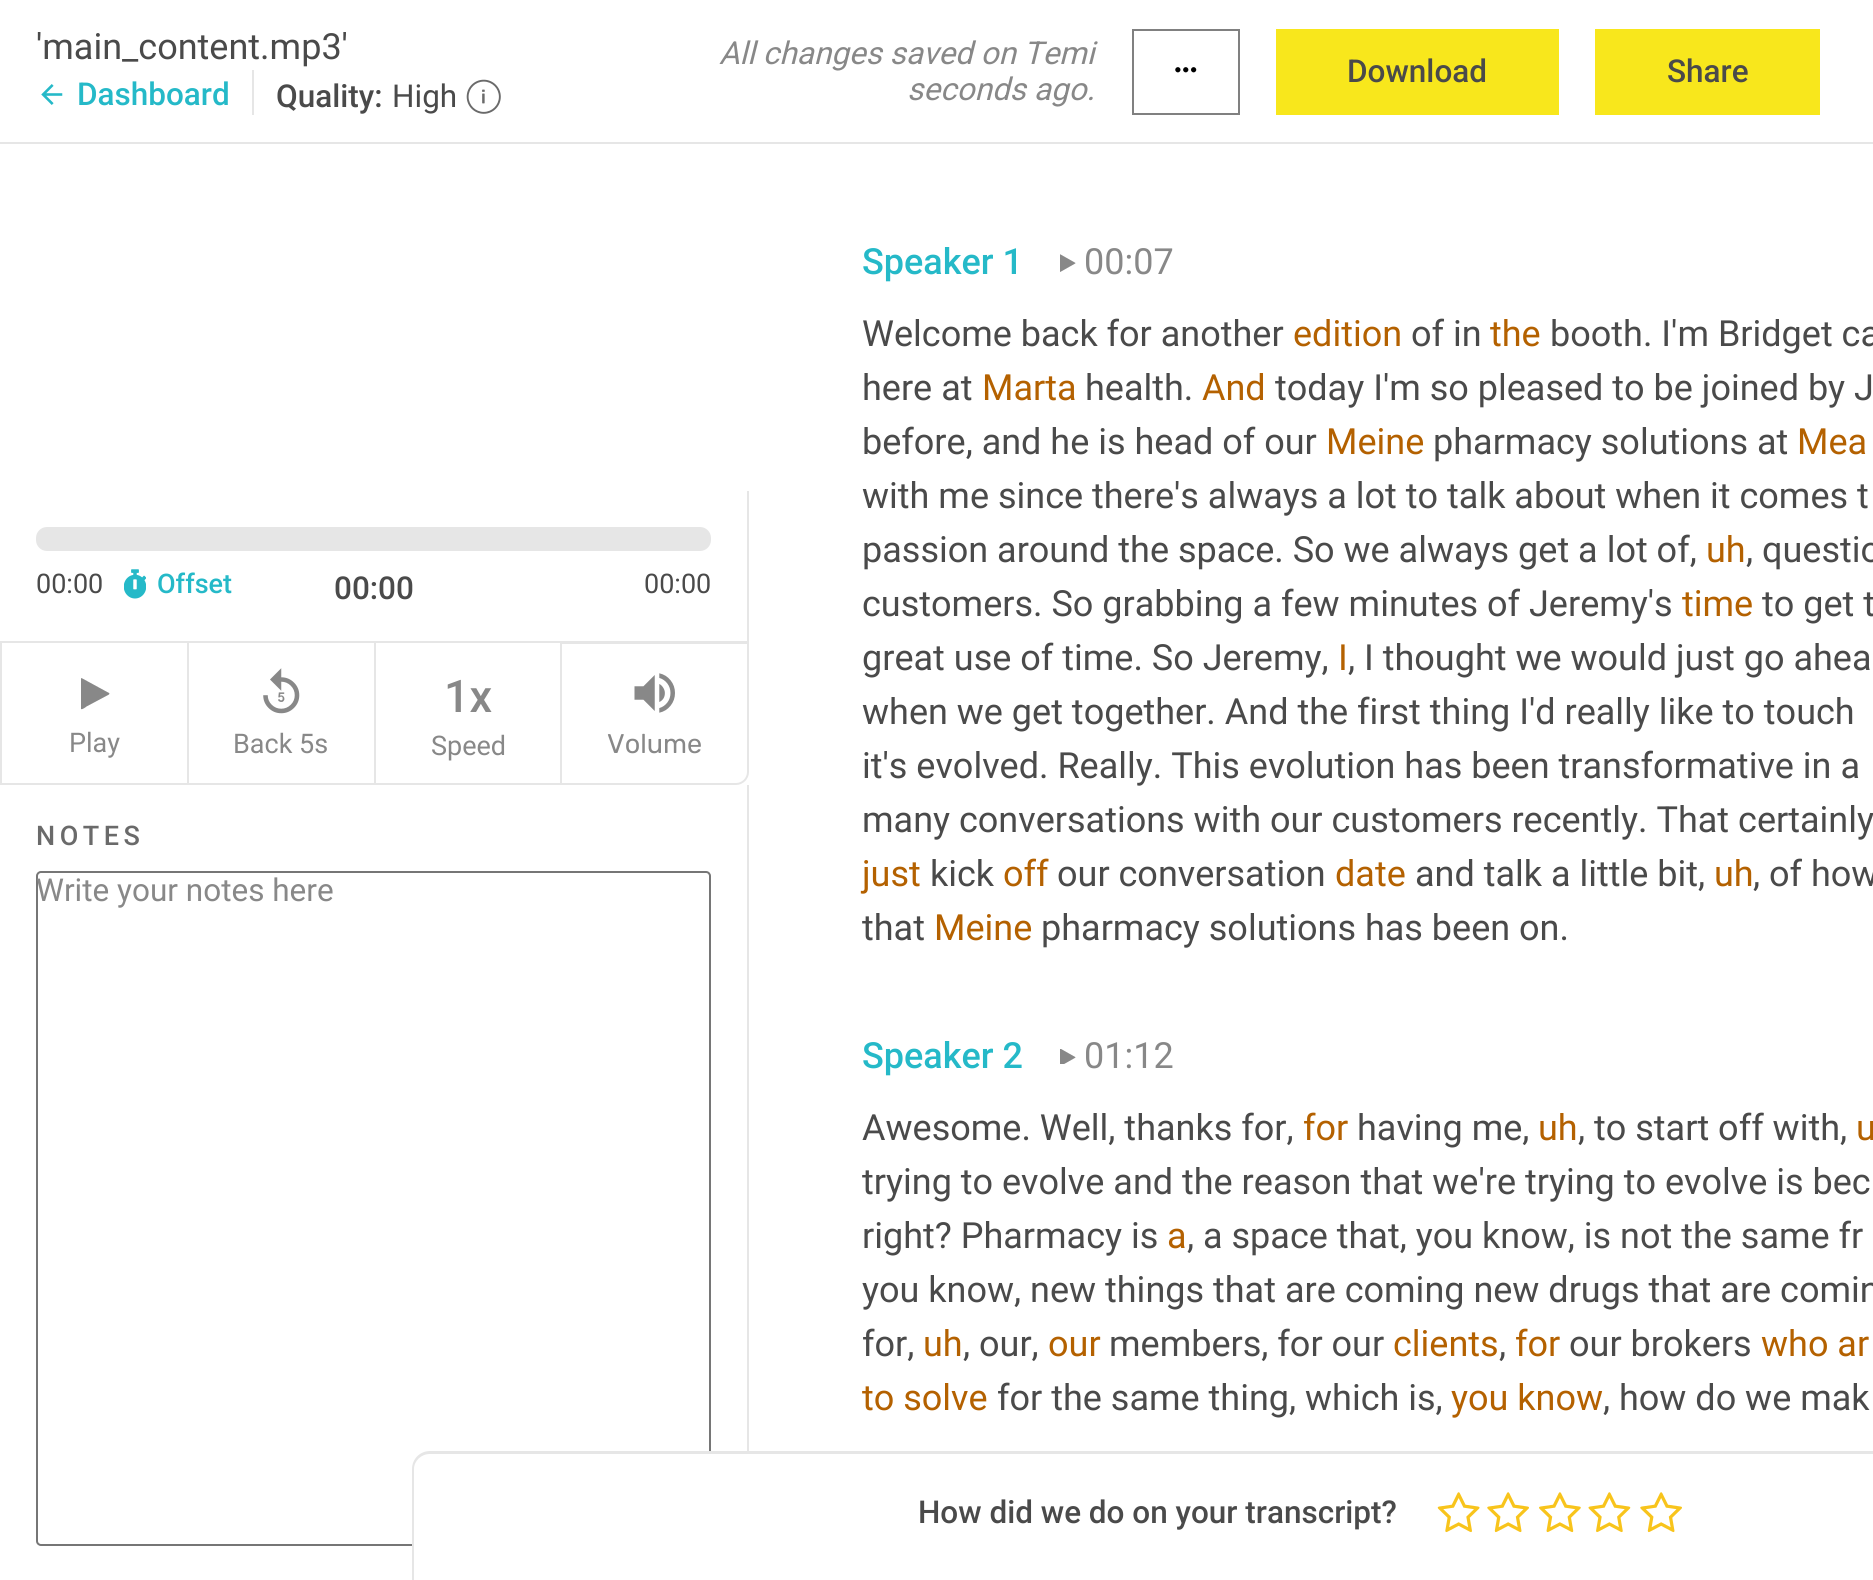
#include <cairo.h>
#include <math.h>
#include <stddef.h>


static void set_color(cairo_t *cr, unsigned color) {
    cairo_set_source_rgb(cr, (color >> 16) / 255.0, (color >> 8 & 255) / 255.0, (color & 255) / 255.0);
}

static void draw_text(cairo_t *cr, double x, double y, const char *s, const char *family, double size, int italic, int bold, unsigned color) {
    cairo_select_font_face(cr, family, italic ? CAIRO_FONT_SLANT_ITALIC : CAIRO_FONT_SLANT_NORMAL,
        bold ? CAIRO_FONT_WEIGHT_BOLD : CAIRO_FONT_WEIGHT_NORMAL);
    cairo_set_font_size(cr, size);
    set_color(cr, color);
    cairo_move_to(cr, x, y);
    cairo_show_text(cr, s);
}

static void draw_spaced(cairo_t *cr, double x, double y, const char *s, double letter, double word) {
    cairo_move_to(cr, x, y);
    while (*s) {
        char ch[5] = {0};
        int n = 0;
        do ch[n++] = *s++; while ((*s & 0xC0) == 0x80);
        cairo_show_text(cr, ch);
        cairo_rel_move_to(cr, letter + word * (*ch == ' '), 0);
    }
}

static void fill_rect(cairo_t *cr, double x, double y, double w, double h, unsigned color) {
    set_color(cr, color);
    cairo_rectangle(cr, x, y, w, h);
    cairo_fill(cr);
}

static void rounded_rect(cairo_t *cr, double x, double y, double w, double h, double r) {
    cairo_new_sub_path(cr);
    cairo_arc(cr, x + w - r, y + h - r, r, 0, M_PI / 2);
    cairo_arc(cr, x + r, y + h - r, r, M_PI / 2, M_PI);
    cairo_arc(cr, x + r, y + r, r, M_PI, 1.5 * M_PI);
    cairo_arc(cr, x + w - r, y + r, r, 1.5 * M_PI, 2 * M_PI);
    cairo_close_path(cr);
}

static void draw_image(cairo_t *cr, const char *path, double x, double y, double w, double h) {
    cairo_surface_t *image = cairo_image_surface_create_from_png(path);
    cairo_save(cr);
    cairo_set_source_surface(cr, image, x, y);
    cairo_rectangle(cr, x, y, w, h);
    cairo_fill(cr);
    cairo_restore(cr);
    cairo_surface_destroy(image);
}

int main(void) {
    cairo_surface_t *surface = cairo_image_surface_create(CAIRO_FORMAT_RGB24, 1873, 1580);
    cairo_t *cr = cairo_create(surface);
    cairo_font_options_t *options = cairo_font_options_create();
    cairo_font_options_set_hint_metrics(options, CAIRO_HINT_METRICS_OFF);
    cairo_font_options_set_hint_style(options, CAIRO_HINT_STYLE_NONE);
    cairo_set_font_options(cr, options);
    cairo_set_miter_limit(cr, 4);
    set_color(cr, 0xFFFFFF);
    cairo_paint(cr);
    fill_rect(cr, 0, 142, 1873, 2, 0xE6E6E6);
    draw_text(cr, 36, 59, "'main_content.mp3'", "Roboto", 36, 0, 0, 0x4A4A4A);
    draw_image(cr, "assets/img1.png", 41, 84, 22, 21);
    draw_text(cr, 77, 105, "Dashboard", "Roboto Medium", 31.5, 0, 0, 0x25B9C8);
    fill_rect(cr, 252, 70, 2, 45, 0xE6E6E6);
    draw_text(cr, 276, 107, "Quality:", "Roboto Medium", 31.5, 0, 0, 0x4A4A4A);
    draw_text(cr, 392, 107, "High", "Roboto", 31.5, 0, 0, 0x4A4A4A);
    draw_image(cr, "assets/img2.png", 466, 79, 35, 35);
    draw_text(cr, 719, 64, "All changes saved on Temi", "Roboto", 31.5, 1, 0, 0x888888);
    draw_text(cr, 907, 100, "seconds ago.", "Roboto", 31.5, 1, 0, 0x888888);
    cairo_rectangle(cr, 1133, 30, 106, 84);
    set_color(cr, 0x808080);
    cairo_stroke(cr);
    draw_image(cr, "assets/img3.png", 1175, 67, 22, 6);
    fill_rect(cr, 1276, 29, 283, 86, 0xF8E71C);
    draw_text(cr, 1347, 82, "Download", "Roboto Medium", 31.5, 0, 0, 0x4A4A4A);
    fill_rect(cr, 1595, 29, 225, 86, 0xF8E71C);
    draw_text(cr, 1667, 82, "Share", "Roboto Medium", 31.5, 0, 0, 0x4A4A4A);
    fill_rect(cr, 747, 491, 2, 150, 0xE6E6E6);
    rounded_rect(cr, 36, 527, 675, 24, 11);
    cairo_fill(cr);
    draw_text(cr, 36, 593, "00:00", "Roboto", 27, 0, 0, 0x4A4A4A);
    draw_image(cr, "assets/img4.png", 124, 569, 22, 30);
    draw_text(cr, 157, 593, "Offset", "Roboto Medium", 27, 0, 0, 0x25B9C8);
    draw_text(cr, 334, 599, "00:00", "Roboto Medium", 31.5, 0, 0, 0x4A4A4A);
    draw_text(cr, 644, 593, "00:00", "Roboto", 27, 0, 0, 0x4A4A4A);
    cairo_rectangle(cr, 1, 642, 187, 142);
    set_color(cr, 0xE6E6E6);
    cairo_stroke(cr);
    set_color(cr, 0x888888);
    cairo_new_path(cr);
    cairo_move_to(cr, 109, 694.5);
    cairo_line_to(cr, 86.5, 706.5);
    cairo_curve_to(cr, 86, 707, 82, 710, 81, 709);
    cairo_line_to(cr, 81, 678.5);
    cairo_line_to(cr, 81.5, 678);
    cairo_line_to(cr, 109, 693);
    cairo_line_to(cr, 109.5, 693.5);
    cairo_close_path(cr);
    cairo_fill(cr);
    draw_text(cr, 69, 752, "Play", "Roboto", 27, 0, 0, 0x888888);
    fill_rect(cr, 189, 641, 374, 2, 0xE6E6E6);
    fill_rect(cr, 374, 641, 2, 144, 0xE6E6E6);
    fill_rect(cr, 189, 783, 187, 2, 0xE6E6E6);
    draw_image(cr, "assets/img5.png", 263, 668, 37, 46);
    draw_text(cr, 233, 753, "Back 5s", "Roboto", 27, 0, 0, 0x888888);
    fill_rect(cr, 560, 641, 2, 144, 0xE6E6E6);
    fill_rect(cr, 376, 783, 187, 2, 0xE6E6E6);
    draw_text(cr, 444, 712, "1x", "Roboto Medium", 45, 0, 0, 0x888888);
    draw_text(cr, 431, 755, "Speed", "Roboto", 27, 0, 0, 0x888888);
    set_color(cr, 0xE6E6E6);
    cairo_set_fill_rule(cr, CAIRO_FILL_RULE_EVEN_ODD);
    cairo_new_path(cr);
    cairo_move_to(cr, 562, 641);
    cairo_line_to(cr, 749, 641);
    cairo_line_to(cr, 749, 772);
    cairo_curve_to(cr, 749, 779, 743, 785, 736, 785);
    cairo_line_to(cr, 562, 785);
    cairo_close_path(cr);
    cairo_move_to(cr, 562, 644);
    cairo_line_to(cr, 747, 644);
    cairo_line_to(cr, 747, 772);
    cairo_curve_to(cr, 747, 778, 742, 783, 736, 783);
    cairo_line_to(cr, 562, 783);
    cairo_close_path(cr);
    cairo_fill(cr);
    draw_image(cr, "assets/img6.png", 634, 673, 41, 40);
    draw_text(cr, 607, 753, "Volume", "Rubik", 27, 0, 0, 0x888888);
    fill_rect(cr, 747, 785, 2, 666, 0xE6E6E6);
    cairo_select_font_face(cr, "Roboto Medium", CAIRO_FONT_SLANT_NORMAL, CAIRO_FONT_WEIGHT_NORMAL);
    set_color(cr, 0x6A6A6A);
    draw_spaced(cr, 36, 845, "NOTES", 4.5, 0);
    rounded_rect(cr, 37, 872, 673, 673, 4);
    set_color(cr, 0x767676);
    cairo_stroke(cr);
    draw_text(cr, 36, 901, "Write your notes here", "Roboto", 31.5, 0, 0, 0x888888);
    draw_text(cr, 862, 274, "Speaker 1", "Roboto Medium", 36, 0, 0, 0x25B9C8);
    draw_image(cr, "assets/img7.png", 1060, 254, 16, 18);
    draw_text(cr, 1084, 274, "00:07", "Roboto", 36, 0, 0, 0x888888);
    draw_text(cr, 862, 346, "Welcome back for another", "Roboto", 36, 0, 0, 0x4A4A4A);
    draw_text(cr, 1293, 346, "edition", "Roboto", 36, 0, 0, 0xB46100);
    draw_text(cr, 1411, 346, "of in", "Roboto", 36, 0, 0, 0x4A4A4A);
    draw_text(cr, 1490, 346, "the", "Roboto", 36, 0, 0, 0xB46100);
    draw_text(cr, 1550, 346, "booth. I'm Bridget ca", "Roboto", 36, 0, 0, 0x4A4A4A);
    draw_text(cr, 862, 400, "here at", "Roboto", 36, 0, 0, 0x4A4A4A);
    draw_text(cr, 982, 400, "Marta", "Roboto", 36, 0, 0, 0xB46100);
    draw_text(cr, 1085, 400, "health.", "Roboto", 36, 0, 0, 0x4A4A4A);
    draw_text(cr, 1202, 400, "And", "Roboto", 36, 0, 0, 0xB46100);
    draw_text(cr, 1275, 400, "today I'm so pleased to be joined by J", "Roboto", 36, 0, 0, 0x4A4A4A);
    draw_text(cr, 862, 454, "before, and he is head of our", "Roboto", 36, 0, 0, 0x4A4A4A);
    draw_text(cr, 1326, 454, "Meine", "Roboto", 36, 0, 0, 0xB46100);
    draw_text(cr, 1433, 454, "pharmacy solutions at", "Roboto", 36, 0, 0, 0x4A4A4A);
    draw_text(cr, 1797, 454, "Mea", "Roboto", 36, 0, 0, 0xB46100);
    draw_text(cr, 862, 508, "with me since there's always a lot to talk about when it comes t", "Roboto", 36, 0, 0, 0x4A4A4A);
    draw_text(cr, 862, 562, "passion around the space. So we always get a lot of,", "Roboto", 36, 0, 0, 0x4A4A4A);
    draw_text(cr, 1706, 562, "uh", "Roboto", 36, 0, 0, 0xB46100);
    draw_text(cr, 1746, 562, ", questio", "Roboto", 36, 0, 0, 0x4A4A4A);
    draw_text(cr, 862, 616, "customers. So grabbing a few minutes of Jeremy's", "Roboto", 36, 0, 0, 0x4A4A4A);
    draw_text(cr, 1682, 616, "time", "Roboto", 36, 0, 0, 0xB46100);
    draw_text(cr, 1762, 616, "to get t", "Roboto", 36, 0, 0, 0x4A4A4A);
    draw_text(cr, 862, 670, "great use of time. So Jeremy,", "Roboto", 36, 0, 0, 0x4A4A4A);
    draw_text(cr, 1338, 670, "I", "Roboto", 36, 0, 0, 0xB46100);
    draw_text(cr, 1348, 670, ", I thought we would just go ahea", "Roboto", 36, 0, 0, 0x4A4A4A);
    draw_text(cr, 862, 724, "when we get together. And the first thing I'd really like to touch", "Roboto", 36, 0, 0, 0x4A4A4A);
    draw_text(cr, 862, 778, "it's evolved. Really. This evolution has been transformative in a", "Roboto", 36, 0, 0, 0x4A4A4A);
    draw_text(cr, 862, 832, "many conversations with our customers recently. That certainly", "Roboto", 36, 0, 0, 0x4A4A4A);
    draw_text(cr, 862, 886, "just", "Roboto", 36, 0, 0, 0xB46100);
    draw_text(cr, 930, 886, "kick", "Roboto", 36, 0, 0, 0x4A4A4A);
    draw_text(cr, 1003, 886, "off", "Roboto", 36, 0, 0, 0xB46100);
    draw_text(cr, 1057, 886, "our conversation", "Roboto", 36, 0, 0, 0x4A4A4A);
    draw_text(cr, 1335, 886, "date", "Roboto", 36, 0, 0, 0xB46100);
    draw_text(cr, 1415, 886, "and talk a little bit,", "Roboto", 36, 0, 0, 0x4A4A4A);
    draw_text(cr, 1714, 886, "uh", "Roboto", 36, 0, 0, 0xB46100);
    draw_text(cr, 1753, 886, ", of how", "Roboto", 36, 0, 0, 0x4A4A4A);
    draw_text(cr, 862, 940, "that", "Roboto", 36, 0, 0, 0x4A4A4A);
    draw_text(cr, 934, 940, "Meine", "Roboto", 36, 0, 0, 0xB46100);
    draw_text(cr, 1041, 940, "pharmacy solutions has been on.", "Roboto", 36, 0, 0, 0x4A4A4A);
    draw_text(cr, 862, 1068, "Speaker 2", "Roboto Medium", 36, 0, 0, 0x25B9C8);
    draw_image(cr, "assets/img8.png", 1060, 1049, 16, 15);
    draw_text(cr, 1084, 1068, "01:12", "Roboto", 36, 0, 0, 0x888888);
    draw_text(cr, 862, 1140, "Awesome. Well, thanks for,", "Roboto", 36, 0, 0, 0x4A4A4A);
    draw_text(cr, 1303, 1140, "for", "Roboto", 36, 0, 0, 0xB46100);
    draw_text(cr, 1357, 1140, "having me,", "Roboto", 36, 0, 0, 0x4A4A4A);
    draw_text(cr, 1538, 1140, "uh", "Roboto", 36, 0, 0, 0xB46100);
    draw_text(cr, 1578, 1140, ", to start off with,", "Roboto", 36, 0, 0, 0x4A4A4A);
    draw_text(cr, 1856, 1140, "u", "Roboto", 36, 0, 0, 0xB46100);
    draw_text(cr, 862, 1194, "trying to evolve and the reason that we're trying to evolve is bec", "Roboto", 36, 0, 0, 0x4A4A4A);
    draw_text(cr, 862, 1248, "right? Pharmacy is", "Roboto", 36, 0, 0, 0x4A4A4A);
    draw_text(cr, 1167, 1248, "a", "Roboto", 36, 0, 0, 0xB46100);
    draw_text(cr, 1187, 1248, ", a space that, you know, is not the same fr", "Roboto", 36, 0, 0, 0x4A4A4A);
    draw_text(cr, 862, 1302, "you know, new things that are coming new drugs that are comin", "Roboto", 36, 0, 0, 0x4A4A4A);
    draw_text(cr, 862, 1356, "for,", "Roboto", 36, 0, 0, 0x4A4A4A);
    draw_text(cr, 923, 1356, "uh", "Roboto", 36, 0, 0, 0xB46100);
    draw_text(cr, 963, 1356, ", our,", "Roboto", 36, 0, 0, 0x4A4A4A);
    draw_text(cr, 1048, 1356, "our", "Roboto", 36, 0, 0, 0xB46100);
    draw_text(cr, 1109, 1356, "members, for our", "Roboto", 36, 0, 0, 0x4A4A4A);
    draw_text(cr, 1393, 1356, "clients", "Roboto", 36, 0, 0, 0xB46100);
    draw_text(cr, 1499, 1356, ",", "Roboto", 36, 0, 0, 0x4A4A4A);
    draw_text(cr, 1515, 1356, "for", "Roboto", 36, 0, 0, 0xB46100);
    draw_text(cr, 1569, 1356, "our brokers", "Roboto", 36, 0, 0, 0x4A4A4A);
    draw_text(cr, 1761, 1356, "who ar", "Roboto", 36, 0, 0, 0xB46100);
    draw_text(cr, 862, 1410, "to solve", "Roboto", 36, 0, 0, 0xB46100);
    draw_text(cr, 997, 1410, "for the same thing, which is,", "Roboto", 36, 0, 0, 0x4A4A4A);
    draw_text(cr, 1451, 1410, "you know", "Roboto", 36, 0, 0, 0xB46100);
    draw_text(cr, 1603, 1410, ", how do we mak", "Roboto", 36, 0, 0, 0x4A4A4A);
    set_color(cr, 0xFFFFFF);
    cairo_new_path(cr);
    cairo_move_to(cr, 430, 1454);
    cairo_line_to(cr, 1873, 1454);
    cairo_curve_to(cr, 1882, 1454, 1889, 1461, 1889, 1470);
    cairo_line_to(cr, 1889, 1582);
    cairo_line_to(cr, 414, 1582);
    cairo_line_to(cr, 414, 1470);
    cairo_curve_to(cr, 414, 1461, 421, 1454, 430, 1454);
    cairo_close_path(cr);
    cairo_fill(cr);
    set_color(cr, 0xE6E6E6);
    cairo_new_path(cr);
    cairo_move_to(cr, 430, 1451);
    cairo_line_to(cr, 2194, 1451);
    cairo_curve_to(cr, 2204, 1451, 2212, 1459, 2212, 1469);
    cairo_line_to(cr, 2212, 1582);
    cairo_line_to(cr, 412, 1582);
    cairo_line_to(cr, 412, 1469);
    cairo_curve_to(cr, 412, 1459, 420, 1451, 430, 1451);
    cairo_close_path(cr);
    cairo_move_to(cr, 430, 1454);
    cairo_line_to(cr, 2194, 1454);
    cairo_curve_to(cr, 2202, 1454, 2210, 1461, 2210, 1469);
    cairo_line_to(cr, 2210, 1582);
    cairo_line_to(cr, 414, 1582);
    cairo_line_to(cr, 414, 1469);
    cairo_curve_to(cr, 414, 1461, 421, 1454, 430, 1454);
    cairo_close_path(cr);
    cairo_fill(cr);
    draw_text(cr, 918, 1523, "How did we do on your transcript?", "Roboto Medium", 31.5, 0, 0, 0x4A4A4A);
    draw_image(cr, "assets/img9.png", 1437, 1492, 43, 41);
    draw_image(cr, "assets/img10.png", 1487, 1492, 42, 41);
    draw_image(cr, "assets/img11.png", 1539, 1492, 42, 41);
    draw_image(cr, "assets/img12.png", 1588, 1492, 43, 41);
    draw_image(cr, "assets/img10.png", 1640, 1492, 42, 41);
    cairo_surface_write_to_png(surface, "output.png");
    cairo_font_options_destroy(options);
    cairo_destroy(cr);
    cairo_surface_destroy(surface);
    return 0;
}
